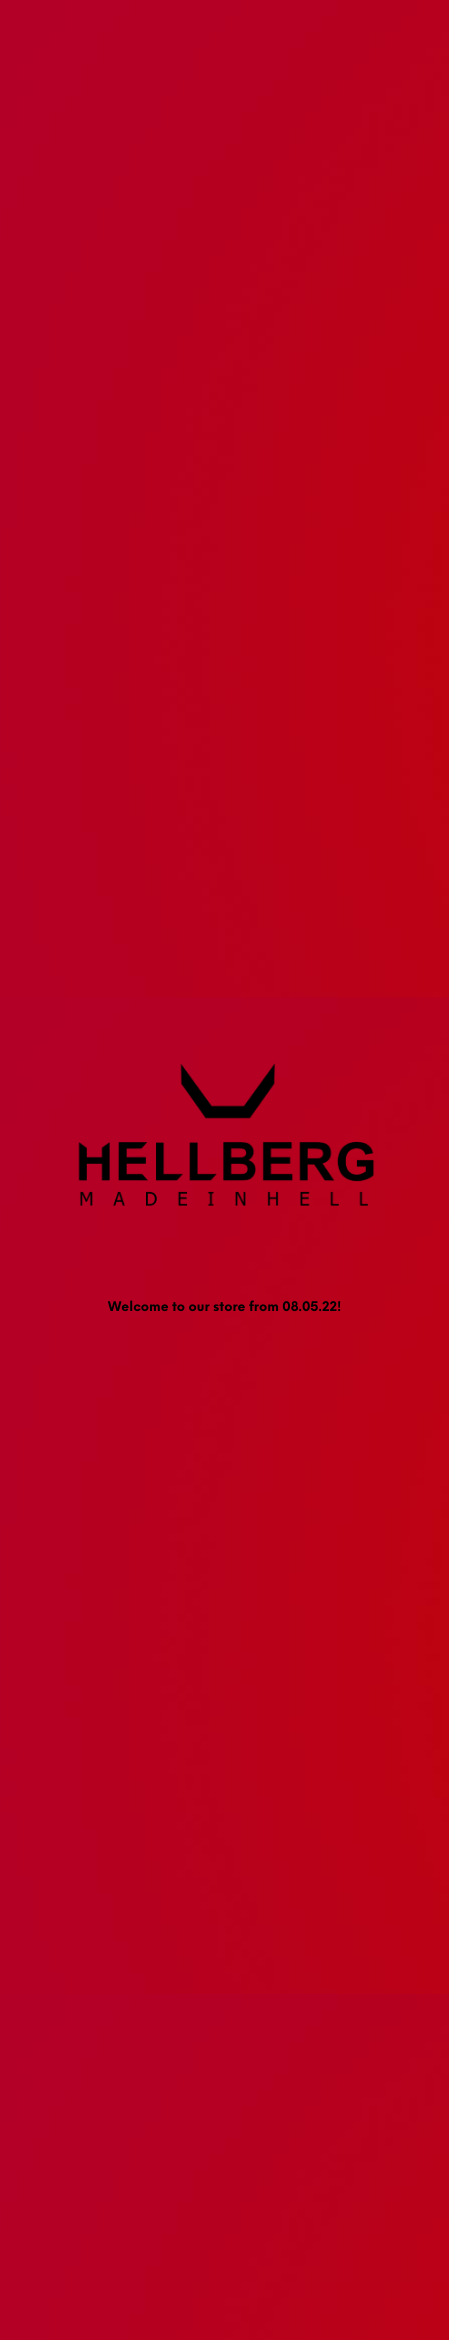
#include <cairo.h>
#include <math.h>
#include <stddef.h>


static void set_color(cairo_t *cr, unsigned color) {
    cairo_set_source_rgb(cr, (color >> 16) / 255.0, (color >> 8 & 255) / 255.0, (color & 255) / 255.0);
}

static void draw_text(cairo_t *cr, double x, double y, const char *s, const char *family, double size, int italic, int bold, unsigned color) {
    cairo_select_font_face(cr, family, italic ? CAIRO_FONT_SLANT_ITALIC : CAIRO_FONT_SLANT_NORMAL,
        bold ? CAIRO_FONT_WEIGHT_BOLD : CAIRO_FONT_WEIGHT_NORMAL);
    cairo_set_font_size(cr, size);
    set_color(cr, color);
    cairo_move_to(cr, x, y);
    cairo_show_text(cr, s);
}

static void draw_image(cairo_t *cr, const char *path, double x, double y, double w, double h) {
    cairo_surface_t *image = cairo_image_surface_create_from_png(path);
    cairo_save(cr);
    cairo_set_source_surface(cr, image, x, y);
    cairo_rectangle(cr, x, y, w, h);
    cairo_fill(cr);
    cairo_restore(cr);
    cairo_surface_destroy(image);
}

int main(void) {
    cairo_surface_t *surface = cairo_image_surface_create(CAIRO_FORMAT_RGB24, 449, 2340);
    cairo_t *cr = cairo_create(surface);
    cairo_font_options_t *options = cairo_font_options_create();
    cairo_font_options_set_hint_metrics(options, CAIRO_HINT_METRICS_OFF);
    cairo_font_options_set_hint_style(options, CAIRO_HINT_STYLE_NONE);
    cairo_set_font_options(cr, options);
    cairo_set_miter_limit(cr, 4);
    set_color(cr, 0xFFFFFF);
    cairo_paint(cr);
    draw_image(cr, "assets/img1.png", 0, 0, 449, 2340);
    draw_image(cr, "assets/img2.png", 78, 1063, 297, 143);
    draw_text(cr, 108, 1311, "Welcome to our store from 08.05.22!", "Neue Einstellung", 13, 0, 1, 0x000000);
    cairo_surface_write_to_png(surface, "output.png");
    cairo_font_options_destroy(options);
    cairo_destroy(cr);
    cairo_surface_destroy(surface);
    return 0;
}
